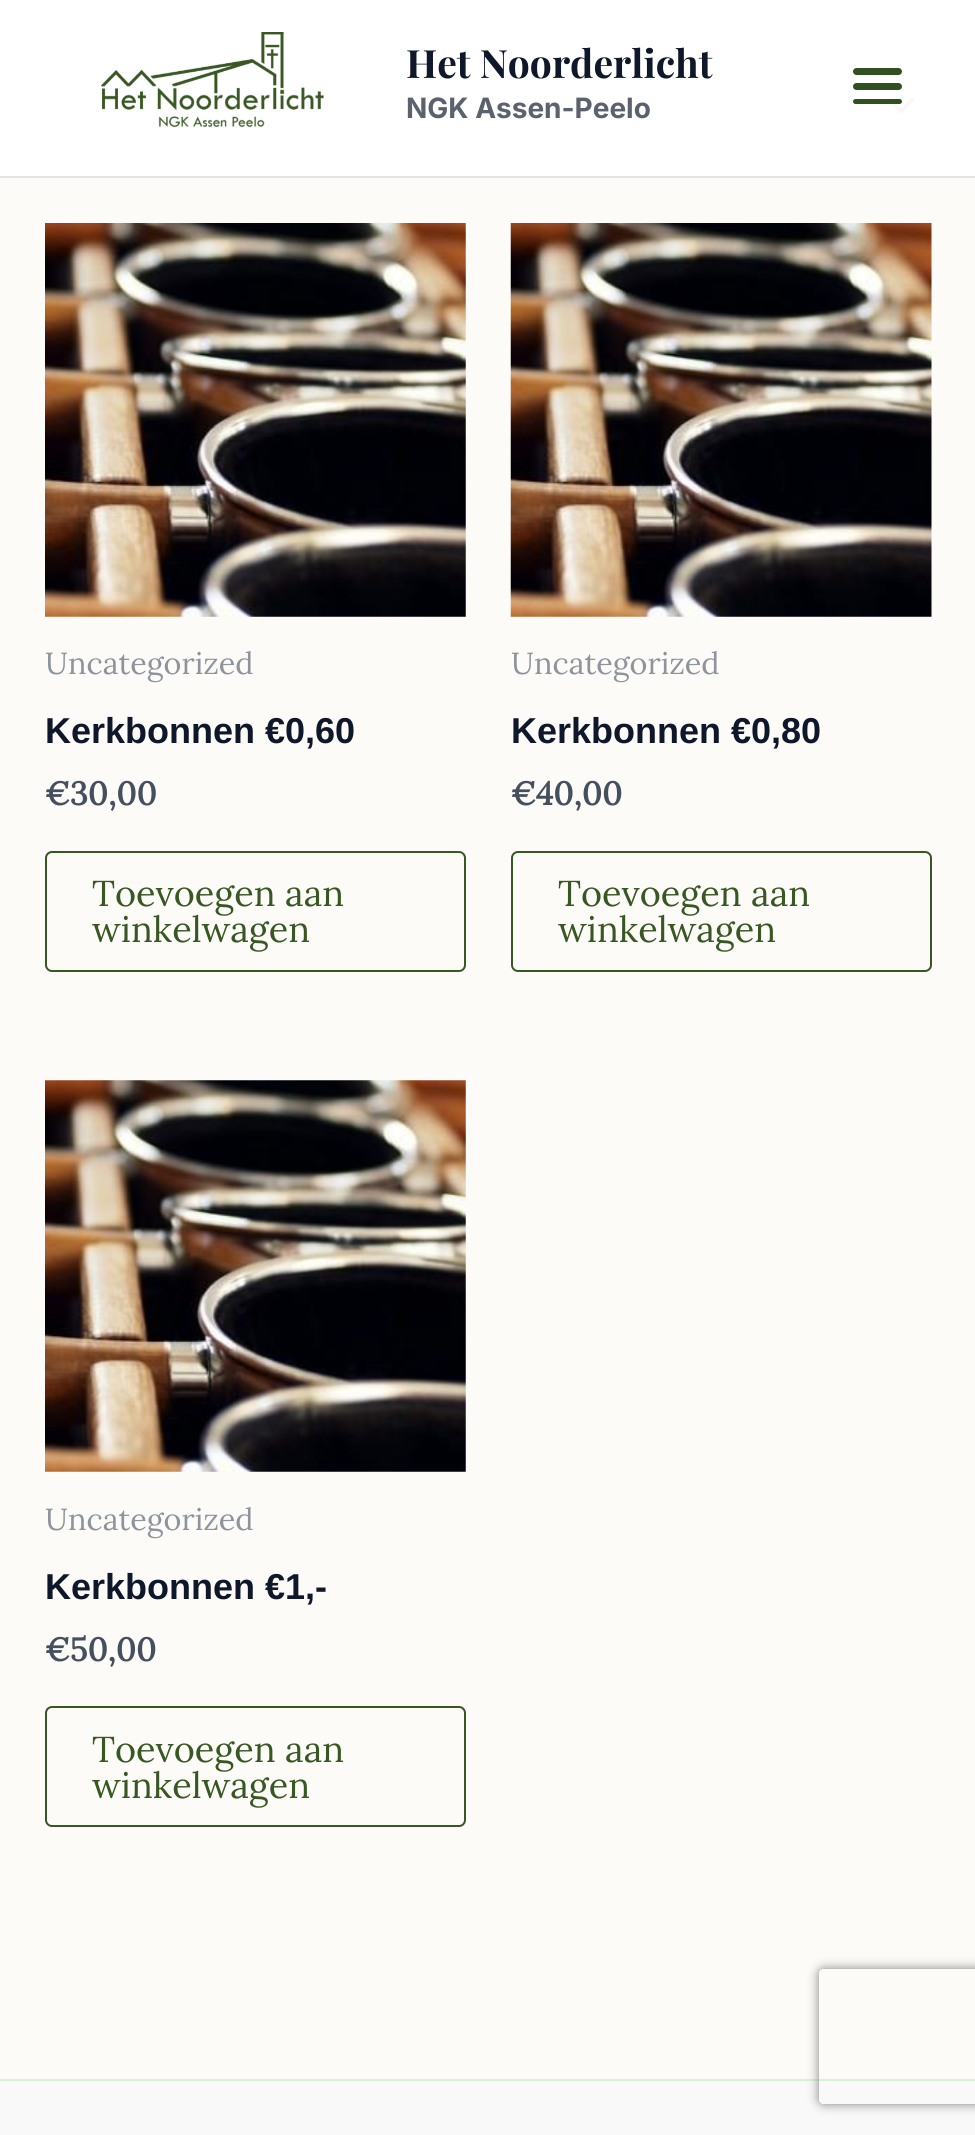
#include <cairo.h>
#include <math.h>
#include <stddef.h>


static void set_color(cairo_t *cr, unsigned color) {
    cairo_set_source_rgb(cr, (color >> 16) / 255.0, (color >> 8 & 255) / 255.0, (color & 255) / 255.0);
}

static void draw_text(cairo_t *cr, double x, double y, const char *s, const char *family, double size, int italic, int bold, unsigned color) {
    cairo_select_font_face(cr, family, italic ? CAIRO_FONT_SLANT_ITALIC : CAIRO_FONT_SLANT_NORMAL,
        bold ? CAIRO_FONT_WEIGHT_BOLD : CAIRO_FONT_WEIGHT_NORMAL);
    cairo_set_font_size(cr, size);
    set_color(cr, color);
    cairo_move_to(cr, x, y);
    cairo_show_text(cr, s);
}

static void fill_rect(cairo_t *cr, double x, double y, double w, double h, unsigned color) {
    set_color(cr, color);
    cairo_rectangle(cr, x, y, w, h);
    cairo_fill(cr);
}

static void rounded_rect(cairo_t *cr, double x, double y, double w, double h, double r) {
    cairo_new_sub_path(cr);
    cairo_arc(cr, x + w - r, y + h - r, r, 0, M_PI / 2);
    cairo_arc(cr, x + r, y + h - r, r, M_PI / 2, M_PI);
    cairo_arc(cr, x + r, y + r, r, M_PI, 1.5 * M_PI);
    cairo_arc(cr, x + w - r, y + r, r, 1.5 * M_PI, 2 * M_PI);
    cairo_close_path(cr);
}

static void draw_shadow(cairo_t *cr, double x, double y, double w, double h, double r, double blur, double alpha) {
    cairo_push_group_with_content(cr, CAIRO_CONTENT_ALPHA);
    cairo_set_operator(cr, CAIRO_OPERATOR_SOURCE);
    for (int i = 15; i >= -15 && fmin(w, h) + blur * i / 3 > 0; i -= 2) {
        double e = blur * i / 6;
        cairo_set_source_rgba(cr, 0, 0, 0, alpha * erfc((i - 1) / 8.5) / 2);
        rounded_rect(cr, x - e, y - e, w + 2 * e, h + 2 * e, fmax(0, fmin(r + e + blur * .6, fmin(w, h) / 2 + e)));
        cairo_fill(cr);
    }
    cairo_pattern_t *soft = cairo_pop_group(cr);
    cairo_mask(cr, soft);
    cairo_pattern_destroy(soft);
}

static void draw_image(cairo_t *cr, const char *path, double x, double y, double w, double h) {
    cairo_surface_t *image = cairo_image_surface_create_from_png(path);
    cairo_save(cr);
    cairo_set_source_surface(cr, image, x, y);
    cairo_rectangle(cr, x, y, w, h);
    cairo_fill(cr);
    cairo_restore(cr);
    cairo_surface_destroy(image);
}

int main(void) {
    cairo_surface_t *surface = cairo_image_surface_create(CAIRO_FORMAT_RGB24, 975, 2135);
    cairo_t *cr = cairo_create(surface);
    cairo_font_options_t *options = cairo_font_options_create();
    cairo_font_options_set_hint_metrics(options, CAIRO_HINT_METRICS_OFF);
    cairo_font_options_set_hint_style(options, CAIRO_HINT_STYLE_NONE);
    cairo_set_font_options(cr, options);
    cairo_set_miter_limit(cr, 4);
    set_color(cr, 0xFCFBF8);
    cairo_paint(cr);
    fill_rect(cr, 0, 0, 975, 176, 0xFFFFFF);
    fill_rect(cr, 0, 176, 975, 2, 0xE2E3E5);
    draw_image(cr, "assets/img1.png", 100, 32, 224, 96);
    draw_text(cr, 406, 78, "Het Noorderlicht", "Playfair Display", 39, 0, 1, 0x0F172A);
    draw_text(cr, 406, 118, "NGK Assen-Peelo", "Inter", 28, 0, 1, 0x5C616E);
    set_color(cr, 0x305020);
    rounded_rect(cr, 853, 68, 49, 7, 3.5);
    cairo_fill(cr);
    rounded_rect(cr, 853, 83, 49, 7, 3.5);
    cairo_fill(cr);
    set_color(cr, 0xF8F8F9);
    cairo_new_path(cr);
    cairo_move_to(cr, 887, 100);
    cairo_line_to(cr, 901, 114);
    cairo_line_to(cr, 914.5, 100);
    cairo_line_to(cr, 912, 97.5);
    cairo_line_to(cr, 901, 108.5);
    cairo_line_to(cr, 890, 97.5);
    cairo_close_path(cr);
    cairo_fill(cr);
    set_color(cr, 0x305020);
    rounded_rect(cr, 853, 99, 49, 5, 2.5);
    cairo_fill(cr);
    draw_image(cr, "assets/img2.png", 45, 223, 421, 394);
    draw_text(cr, 45, 674, "Uncategorized", "Lora", 30.5, 0, 0, 0x8E949C);
    draw_text(cr, 45, 743, "Kerkbonnen €0,60", "Liberation Sans", 36, 0, 1, 0x0F172A);
    draw_text(cr, 45, 805, "€30,00", "Lora", 32.5, 0, 1, 0x454F5E);
    rounded_rect(cr, 46, 852, 419, 119, 6);
    set_color(cr, 0x385723);
    cairo_stroke(cr);
    draw_text(cr, 92, 906, "Toevoegen aan", "Lora", 36, 0, 0, 0x385723);
    draw_text(cr, 92, 942, "winkelwagen", "Lora", 36, 0, 0, 0x385723);
    draw_image(cr, "assets/img3.png", 510, 223, 422, 394);
    draw_text(cr, 511, 674, "Uncategorized", "Lora", 30.5, 0, 0, 0x8E949C);
    draw_text(cr, 511, 743, "Kerkbonnen €0,80", "Liberation Sans", 36, 0, 1, 0x0F172A);
    draw_text(cr, 511, 805, "€40,00", "Lora", 32.5, 0, 1, 0x454F5E);
    rounded_rect(cr, 512, 852, 419, 119, 6);
    set_color(cr, 0x385723);
    cairo_stroke(cr);
    draw_text(cr, 558, 906, "Toevoegen aan", "Lora", 36, 0, 0, 0x385723);
    draw_text(cr, 558, 942, "winkelwagen", "Lora", 36, 0, 0, 0x385723);
    draw_image(cr, "assets/img4.png", 45, 1080, 421, 392);
    draw_text(cr, 45, 1530, "Uncategorized", "Lora", 30.5, 0, 0, 0x8E949C);
    draw_text(cr, 45, 1599, "Kerkbonnen €1,-", "Liberation Sans", 36, 0, 1, 0x0F172A);
    draw_text(cr, 45, 1661, "€50,00", "Lora", 32.5, 0, 1, 0x454F5E);
    rounded_rect(cr, 46, 1707, 419, 119, 6);
    set_color(cr, 0x385723);
    cairo_stroke(cr);
    draw_text(cr, 92, 1762, "Toevoegen aan", "Lora", 36, 0, 0, 0x385723);
    draw_text(cr, 92, 1798, "winkelwagen", "Lora", 36, 0, 0, 0x385723);
    fill_rect(cr, 0, 2081, 975, 54, 0xF9F9F9);
    fill_rect(cr, 0, 2079, 975, 2, 0xD4F3D7);
    cairo_save(cr);
    cairo_set_fill_rule(cr, CAIRO_FILL_RULE_EVEN_ODD);
    cairo_new_path(cr);
    cairo_move_to(cr, 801, 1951);
    cairo_line_to(cr, 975, 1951);
    cairo_line_to(cr, 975, 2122);
    cairo_line_to(cr, 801, 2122);
    cairo_close_path(cr);
    cairo_move_to(cr, 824, 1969);
    cairo_line_to(cr, 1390, 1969);
    cairo_curve_to(cr, 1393, 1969, 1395, 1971, 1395, 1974);
    cairo_line_to(cr, 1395, 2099);
    cairo_curve_to(cr, 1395, 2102, 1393, 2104, 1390, 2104);
    cairo_line_to(cr, 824, 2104);
    cairo_curve_to(cr, 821, 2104, 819, 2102, 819, 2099);
    cairo_line_to(cr, 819, 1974);
    cairo_curve_to(cr, 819, 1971, 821, 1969, 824, 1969);
    cairo_close_path(cr);
    cairo_clip(cr);
    set_color(cr, 0x808080);
    draw_shadow(cr, 819, 1969, 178, 135, 5, 5.5, 1);
    cairo_restore(cr);
    cairo_surface_write_to_png(surface, "output.png");
    cairo_font_options_destroy(options);
    cairo_destroy(cr);
    cairo_surface_destroy(surface);
    return 0;
}
